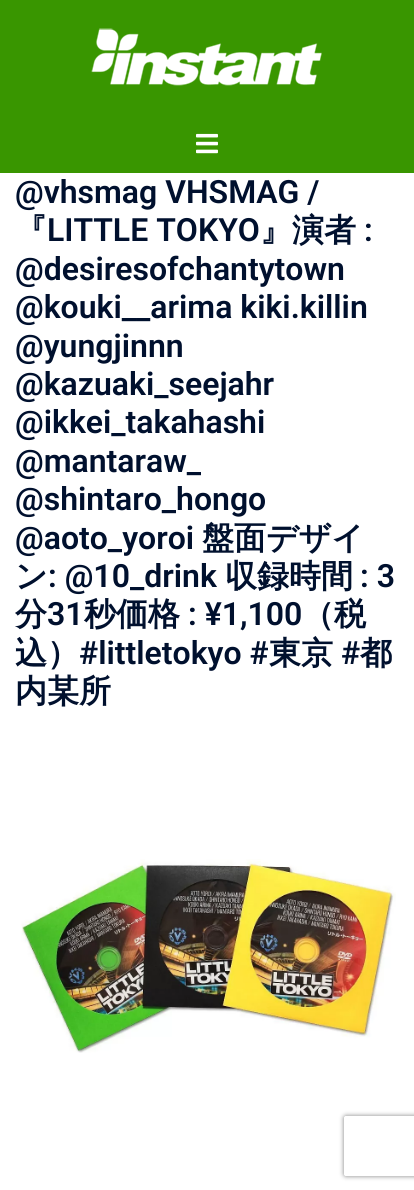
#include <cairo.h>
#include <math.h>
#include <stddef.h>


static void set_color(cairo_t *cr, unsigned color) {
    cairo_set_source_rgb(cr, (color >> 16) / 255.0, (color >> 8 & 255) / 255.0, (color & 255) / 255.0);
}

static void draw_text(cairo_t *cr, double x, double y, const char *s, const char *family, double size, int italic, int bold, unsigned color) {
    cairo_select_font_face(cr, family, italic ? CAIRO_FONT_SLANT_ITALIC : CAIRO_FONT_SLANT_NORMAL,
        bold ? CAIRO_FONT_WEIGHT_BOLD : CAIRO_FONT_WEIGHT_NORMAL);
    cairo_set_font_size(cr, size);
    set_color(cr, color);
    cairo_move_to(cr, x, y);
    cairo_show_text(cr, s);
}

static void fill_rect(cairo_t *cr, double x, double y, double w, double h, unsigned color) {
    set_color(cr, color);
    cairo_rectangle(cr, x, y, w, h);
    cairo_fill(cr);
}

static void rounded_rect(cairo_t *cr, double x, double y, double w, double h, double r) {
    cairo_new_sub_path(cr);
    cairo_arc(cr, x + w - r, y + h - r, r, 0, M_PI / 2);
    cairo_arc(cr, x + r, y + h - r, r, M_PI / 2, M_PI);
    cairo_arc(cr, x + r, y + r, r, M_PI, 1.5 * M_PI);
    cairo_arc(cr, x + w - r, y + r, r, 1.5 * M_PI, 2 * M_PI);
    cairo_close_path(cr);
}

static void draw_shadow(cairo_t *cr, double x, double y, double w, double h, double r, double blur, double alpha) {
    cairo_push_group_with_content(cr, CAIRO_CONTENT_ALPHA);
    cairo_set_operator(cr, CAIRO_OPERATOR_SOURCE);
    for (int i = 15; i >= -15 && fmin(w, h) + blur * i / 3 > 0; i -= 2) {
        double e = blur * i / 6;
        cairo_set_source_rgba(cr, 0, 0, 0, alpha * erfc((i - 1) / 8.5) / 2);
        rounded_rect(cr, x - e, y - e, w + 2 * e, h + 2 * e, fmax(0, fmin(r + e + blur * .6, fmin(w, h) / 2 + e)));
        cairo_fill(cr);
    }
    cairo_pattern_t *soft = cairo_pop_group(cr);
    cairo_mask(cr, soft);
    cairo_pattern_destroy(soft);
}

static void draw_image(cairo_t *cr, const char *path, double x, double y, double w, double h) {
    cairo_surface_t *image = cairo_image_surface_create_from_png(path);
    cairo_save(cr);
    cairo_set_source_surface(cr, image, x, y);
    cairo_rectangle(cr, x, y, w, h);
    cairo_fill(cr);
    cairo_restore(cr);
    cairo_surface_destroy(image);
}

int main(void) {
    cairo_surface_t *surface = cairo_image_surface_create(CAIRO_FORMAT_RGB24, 414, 1190);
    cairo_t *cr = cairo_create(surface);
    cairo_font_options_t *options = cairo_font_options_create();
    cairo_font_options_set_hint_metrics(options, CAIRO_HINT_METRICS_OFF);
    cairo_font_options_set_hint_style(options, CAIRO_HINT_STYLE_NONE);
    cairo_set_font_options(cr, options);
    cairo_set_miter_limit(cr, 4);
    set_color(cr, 0xFFFFFF);
    cairo_paint(cr);
    fill_rect(cr, 0, 0, 414, 173, 0x399600);
    draw_image(cr, "assets/img1.png", 91, 28, 231, 58);
    draw_image(cr, "assets/img2.png", 196, 133, 22, 21);
    draw_text(cr, 15, 203, "@vhsmag VHSMAG /", "Roboto SemiBold", 32, 0, 0, 0x00102E);
    draw_text(cr, 15, 241, "『", "WenQuanYi Zen Hei", 32, 0, 1, 0x00102E);
    draw_text(cr, 47, 241, "LITTLE TOKYO", "Roboto SemiBold", 32, 0, 0, 0x00102E);
    draw_text(cr, 260, 241, "』演者", "WenQuanYi Zen Hei", 32, 0, 1, 0x00102E);
    draw_text(cr, 364, 241, ":", "Roboto SemiBold", 32, 0, 0, 0x00102E);
    draw_text(cr, 15, 280, "@desiresofchantytown", "Roboto SemiBold", 32, 0, 0, 0x00102E);
    draw_text(cr, 15, 318, "@kouki__arima kiki.killin", "Roboto SemiBold", 32, 0, 0, 0x00102E);
    draw_text(cr, 15, 357, "@yungjinnn", "Roboto SemiBold", 32, 0, 0, 0x00102E);
    draw_text(cr, 15, 395, "@kazuaki_seejahr", "Roboto SemiBold", 32, 0, 0, 0x00102E);
    draw_text(cr, 15, 433, "@ikkei_takahashi", "Roboto SemiBold", 32, 0, 0, 0x00102E);
    draw_text(cr, 15, 472, "@mantaraw_", "Roboto SemiBold", 32, 0, 0, 0x00102E);
    draw_text(cr, 15, 510, "@shintaro_hongo", "Roboto SemiBold", 32, 0, 0, 0x00102E);
    draw_text(cr, 15, 549, "@aoto_yoroi", "Roboto SemiBold", 32, 0, 0, 0x00102E);
    draw_text(cr, 202, 549, "盤面デザイ", "WenQuanYi Zen Hei", 32, 0, 1, 0x00102E);
    draw_text(cr, 15, 587, "ン", "WenQuanYi Zen Hei", 32, 0, 1, 0x00102E);
    draw_text(cr, 48, 587, ": @10_drink", "Roboto SemiBold", 32, 0, 0, 0x00102E);
    draw_text(cr, 225, 587, "収録時間", "WenQuanYi Zen Hei", 32, 0, 1, 0x00102E);
    draw_text(cr, 360, 587, ": 3", "Roboto SemiBold", 32, 0, 0, 0x00102E);
    draw_text(cr, 15, 625, "分", "WenQuanYi Zen Hei", 32, 0, 1, 0x00102E);
    draw_text(cr, 47, 625, "31", "Roboto SemiBold", 32, 0, 0, 0x00102E);
    draw_text(cr, 84, 625, "秒価格", "WenQuanYi Zen Hei", 32, 0, 1, 0x00102E);
    draw_text(cr, 188, 625, ": ¥1,100", "Roboto SemiBold", 32, 0, 0, 0x00102E);
    draw_text(cr, 302, 625, "（税", "WenQuanYi Zen Hei", 32, 0, 1, 0x00102E);
    draw_text(cr, 15, 664, "込）", "WenQuanYi Zen Hei", 32, 0, 1, 0x00102E);
    draw_text(cr, 79, 664, "#littletokyo #", "Roboto SemiBold", 32, 0, 0, 0x00102E);
    draw_text(cr, 269, 664, "東京", "WenQuanYi Zen Hei", 32, 0, 1, 0x00102E);
    draw_text(cr, 341, 664, "#", "Roboto SemiBold", 32, 0, 0, 0x00102E);
    draw_text(cr, 360, 664, "都", "WenQuanYi Zen Hei", 32, 0, 1, 0x00102E);
    draw_text(cr, 15, 702, "内某所", "WenQuanYi Zen Hei", 32, 0, 1, 0x00102E);
    draw_image(cr, "assets/img3.png", 21, 859, 375, 194);
    cairo_save(cr);
    cairo_set_fill_rule(cr, CAIRO_FILL_RULE_EVEN_ODD);
    cairo_new_path(cr);
    cairo_move_to(cr, 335, 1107);
    cairo_line_to(cr, 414, 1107);
    cairo_line_to(cr, 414, 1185);
    cairo_line_to(cr, 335, 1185);
    cairo_close_path(cr);
    cairo_move_to(cr, 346, 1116);
    cairo_line_to(cr, 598, 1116);
    cairo_curve_to(cr, 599, 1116, 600, 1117, 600, 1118);
    cairo_line_to(cr, 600, 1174);
    cairo_curve_to(cr, 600, 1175, 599, 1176, 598, 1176);
    cairo_line_to(cr, 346, 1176);
    cairo_curve_to(cr, 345, 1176, 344, 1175, 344, 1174);
    cairo_line_to(cr, 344, 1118);
    cairo_curve_to(cr, 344, 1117, 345, 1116, 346, 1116);
    cairo_close_path(cr);
    cairo_clip(cr);
    set_color(cr, 0x808080);
    draw_shadow(cr, 344, 1116, 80, 60, 2, 2.5, 1);
    cairo_restore(cr);
    cairo_surface_write_to_png(surface, "output.png");
    cairo_font_options_destroy(options);
    cairo_destroy(cr);
    cairo_surface_destroy(surface);
    return 0;
}
